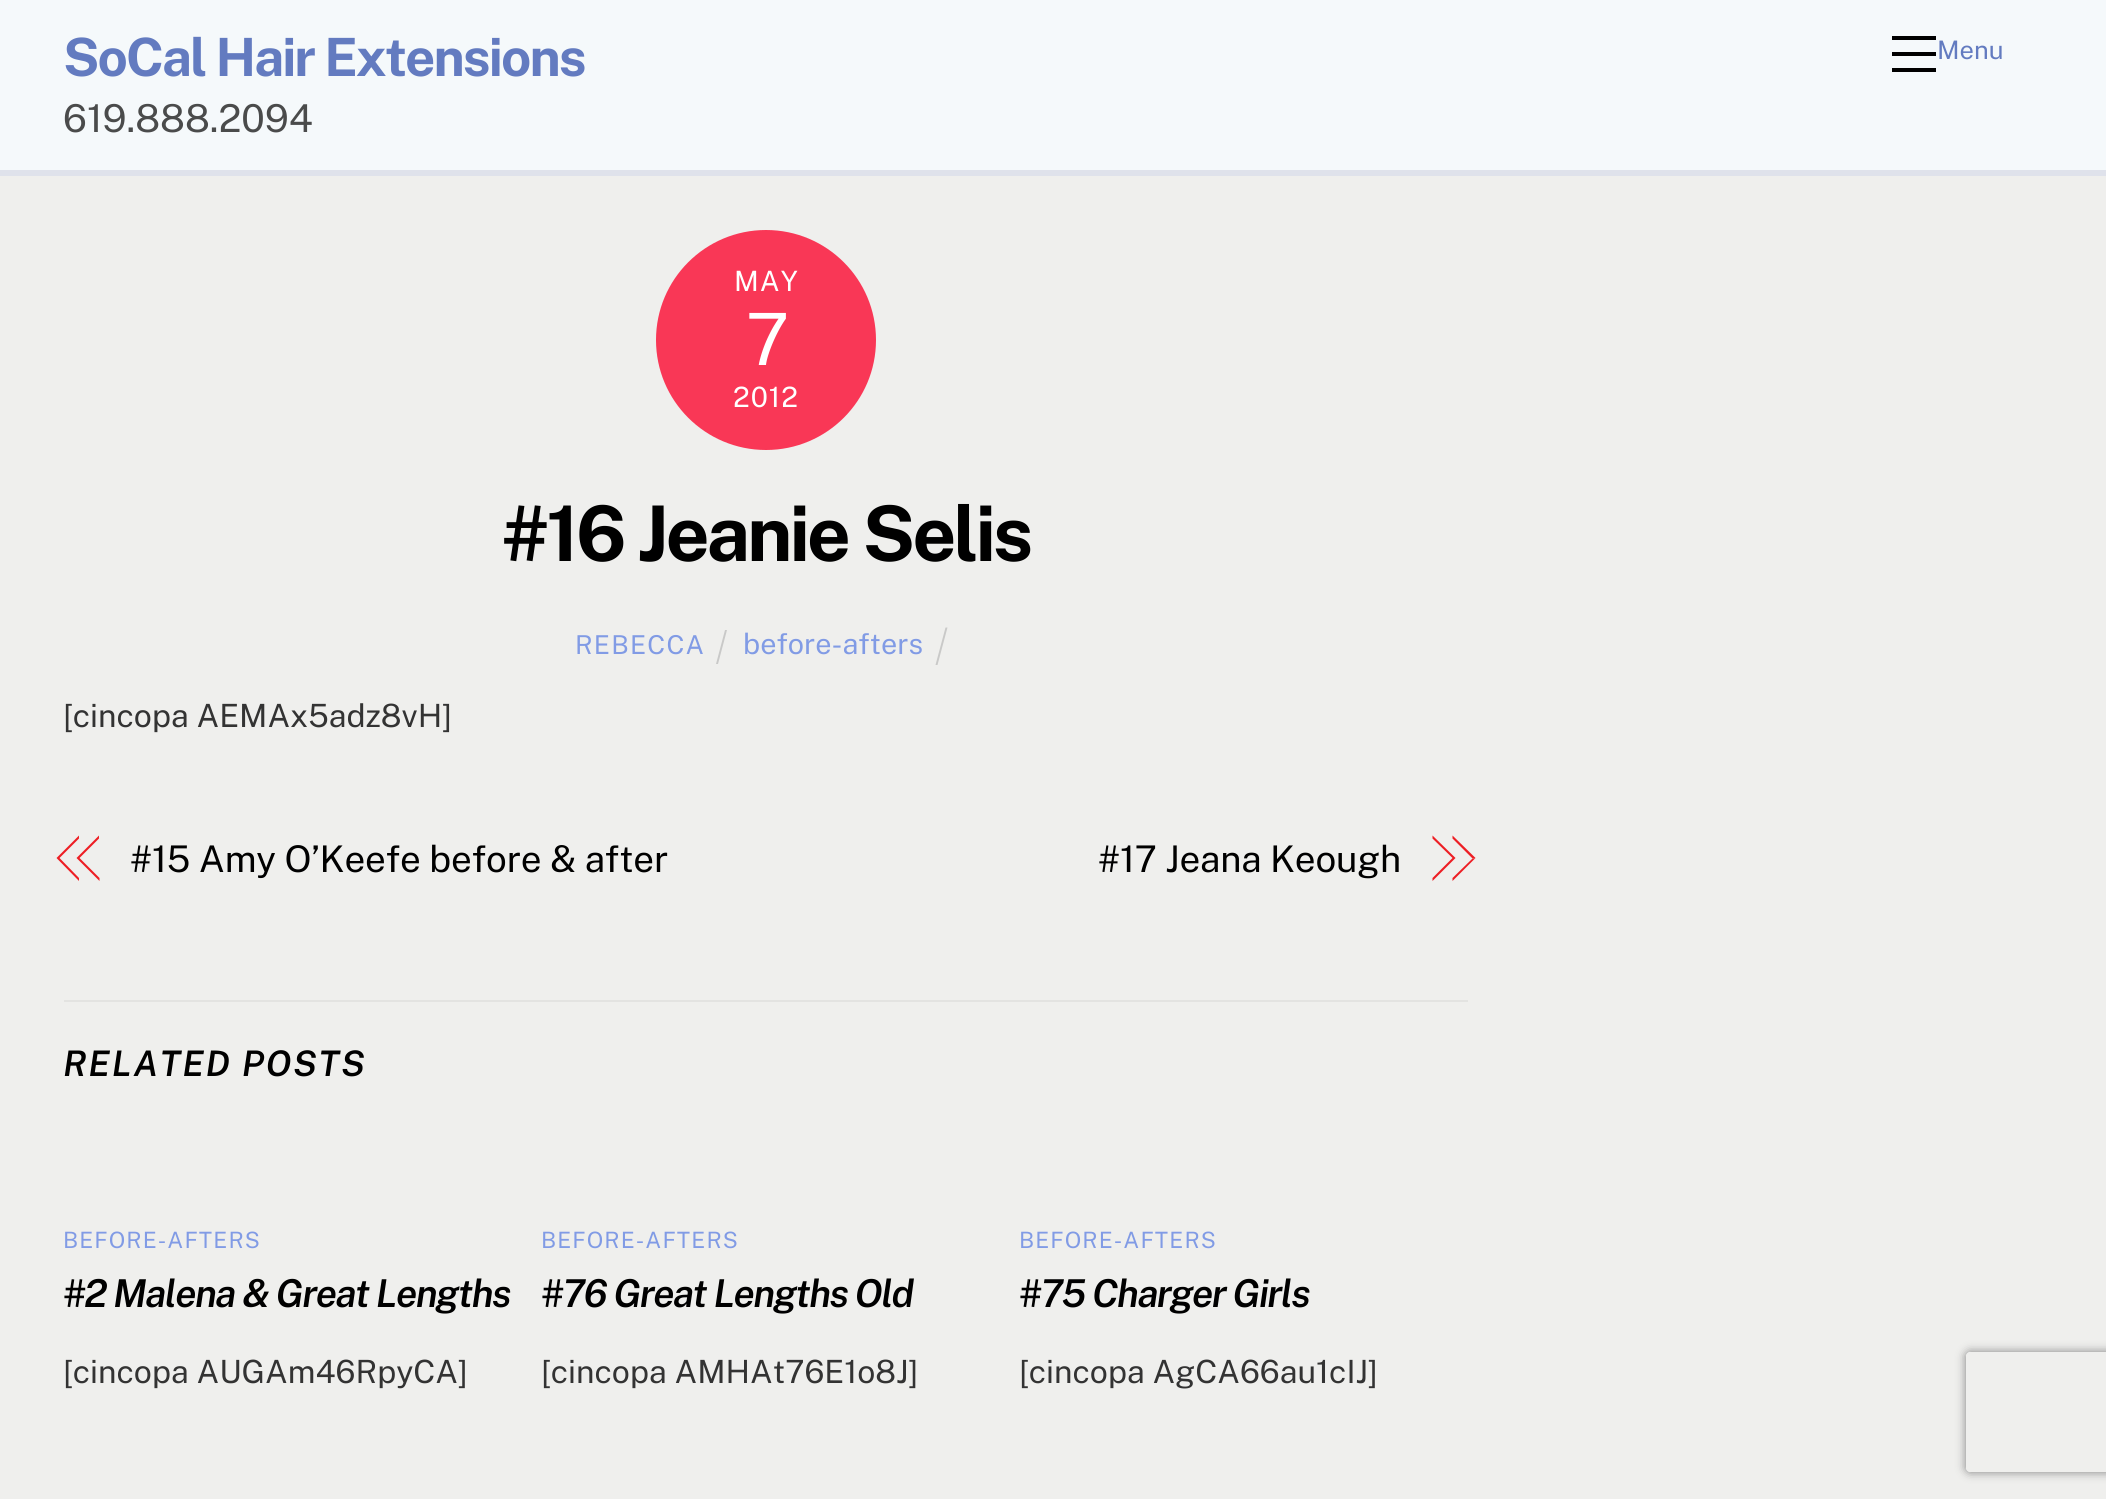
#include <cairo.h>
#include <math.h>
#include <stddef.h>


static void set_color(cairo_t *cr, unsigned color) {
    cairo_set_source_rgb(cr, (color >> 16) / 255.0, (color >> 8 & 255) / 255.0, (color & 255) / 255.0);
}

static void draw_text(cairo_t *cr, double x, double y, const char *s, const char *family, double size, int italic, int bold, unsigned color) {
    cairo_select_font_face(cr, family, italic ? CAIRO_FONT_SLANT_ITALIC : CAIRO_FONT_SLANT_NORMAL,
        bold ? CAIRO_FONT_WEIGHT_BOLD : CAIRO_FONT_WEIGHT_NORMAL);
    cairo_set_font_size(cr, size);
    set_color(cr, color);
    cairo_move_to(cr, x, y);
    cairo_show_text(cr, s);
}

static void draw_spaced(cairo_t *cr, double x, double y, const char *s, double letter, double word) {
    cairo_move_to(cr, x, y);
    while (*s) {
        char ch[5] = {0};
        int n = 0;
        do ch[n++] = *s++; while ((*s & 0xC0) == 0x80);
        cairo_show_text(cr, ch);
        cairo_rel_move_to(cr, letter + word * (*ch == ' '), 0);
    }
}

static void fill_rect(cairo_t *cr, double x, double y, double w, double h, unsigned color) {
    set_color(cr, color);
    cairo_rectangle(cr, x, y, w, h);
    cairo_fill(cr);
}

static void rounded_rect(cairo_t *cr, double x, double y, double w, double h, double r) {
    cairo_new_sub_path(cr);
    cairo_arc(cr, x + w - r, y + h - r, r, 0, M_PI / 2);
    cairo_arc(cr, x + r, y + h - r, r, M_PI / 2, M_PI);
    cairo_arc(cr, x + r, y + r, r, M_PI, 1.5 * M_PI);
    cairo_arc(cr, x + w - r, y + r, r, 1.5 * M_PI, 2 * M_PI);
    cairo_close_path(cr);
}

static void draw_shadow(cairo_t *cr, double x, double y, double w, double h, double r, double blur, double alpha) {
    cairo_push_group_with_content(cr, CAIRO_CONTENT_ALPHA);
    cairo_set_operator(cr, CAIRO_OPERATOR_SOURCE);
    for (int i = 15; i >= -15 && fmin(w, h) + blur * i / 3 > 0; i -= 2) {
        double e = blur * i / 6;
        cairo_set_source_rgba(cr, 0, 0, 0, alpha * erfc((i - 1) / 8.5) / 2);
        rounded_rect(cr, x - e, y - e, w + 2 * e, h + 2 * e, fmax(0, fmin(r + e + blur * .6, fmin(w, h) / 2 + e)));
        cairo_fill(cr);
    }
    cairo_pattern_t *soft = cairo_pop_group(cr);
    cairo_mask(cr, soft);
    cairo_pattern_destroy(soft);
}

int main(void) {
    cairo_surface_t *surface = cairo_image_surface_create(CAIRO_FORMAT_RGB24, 2106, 1499);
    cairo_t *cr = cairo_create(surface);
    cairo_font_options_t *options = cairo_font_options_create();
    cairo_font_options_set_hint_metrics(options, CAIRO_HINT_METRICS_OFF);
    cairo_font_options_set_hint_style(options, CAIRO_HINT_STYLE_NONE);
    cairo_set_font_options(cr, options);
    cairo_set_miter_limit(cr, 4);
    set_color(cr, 0xEFEFED);
    cairo_paint(cr);
    fill_rect(cr, 0, 0, 2106, 170, 0xF5F9FB);
    fill_rect(cr, 0, 170, 2106, 6, 0xDFE2EB);
    cairo_select_font_face(cr, "Public Sans", CAIRO_FONT_SLANT_NORMAL, CAIRO_FONT_WEIGHT_BOLD);
    cairo_set_font_size(cr, 52.75);
    set_color(cr, 0x637BC0);
    draw_spaced(cr, 63, 76, "SoCal Hair Extensions", -1.9, 0);
    draw_text(cr, 63, 132, "619.888.2094", "Public Sans", 38.4, 0, 0, 0x4A4B4B);
    fill_rect(cr, 1892, 68, 44, 4, 0x000000);
    fill_rect(cr, 1892, 36, 44, 4, 0x000000);
    fill_rect(cr, 1892, 52, 44, 4, 0x000000);
    draw_text(cr, 1937, 59, "Menu", "Public Sans", 25.5, 0, 0, 0x637BC0);
    set_color(cr, 0xF93756);
    cairo_new_path(cr);
    cairo_arc(cr, 766, 340, 110, 0, 2 * M_PI);
    cairo_fill(cr);
    cairo_set_font_size(cr, 28);
    set_color(cr, 0xFFFFFF);
    draw_spaced(cr, 734, 291, "MAY", 1, 0);
    cairo_set_font_size(cr, 72);
    draw_spaced(cr, 746, 365, "7", -4, 0);
    cairo_set_font_size(cr, 28);
    draw_spaced(cr, 733, 407, "2012", 1, 0);
    cairo_select_font_face(cr, "Public Sans", CAIRO_FONT_SLANT_NORMAL, CAIRO_FONT_WEIGHT_BOLD);
    cairo_set_font_size(cr, 76.75);
    set_color(cr, 0x000000);
    draw_spaced(cr, 502, 561, "#16 Jeanie Selis", -3.1, 0);
    cairo_select_font_face(cr, "Public Sans", CAIRO_FONT_SLANT_NORMAL, CAIRO_FONT_WEIGHT_NORMAL);
    cairo_set_font_size(cr, 26);
    set_color(cr, 0x819BE5);
    draw_spaced(cr, 575, 654, "REBECCA", 1.25, 0);
    set_color(cr, 0xC9C9C8);
    cairo_new_path(cr);
    cairo_move_to(cr, 725, 630);
    cairo_line_to(cr, 727, 630);
    cairo_line_to(cr, 718, 664);
    cairo_line_to(cr, 716, 664);
    cairo_close_path(cr);
    cairo_fill(cr);
    draw_text(cr, 743, 654, "before-afters", "Public Sans", 28.75, 0, 0, 0x819BE5);
    set_color(cr, 0xC9C9C8);
    cairo_new_path(cr);
    cairo_move_to(cr, 945.5, 627.5);
    cairo_line_to(cr, 947.5, 627.5);
    cairo_line_to(cr, 937.5, 665);
    cairo_line_to(cr, 935.5, 665);
    cairo_close_path(cr);
    cairo_fill(cr);
    draw_text(cr, 63, 727, "[cincopa AEMAx5adz8vH]", "Public Sans", 32, 0, 0, 0x333333);
    set_color(cr, 0xED1E24);
    cairo_new_path(cr);
    cairo_move_to(cr, 56.5, 858);
    cairo_line_to(cr, 79, 835.5);
    cairo_line_to(cr, 79, 838.5);
    cairo_line_to(cr, 59.5, 858);
    cairo_close_path(cr);
    cairo_move_to(cr, 79, 881);
    cairo_line_to(cr, 56.5, 858);
    cairo_line_to(cr, 59.5, 858);
    cairo_line_to(cr, 79, 878);
    cairo_close_path(cr);
    cairo_fill(cr);
    cairo_new_path(cr);
    cairo_move_to(cr, 76.5, 858);
    cairo_line_to(cr, 99, 835.5);
    cairo_line_to(cr, 99, 838.5);
    cairo_line_to(cr, 79.5, 858);
    cairo_close_path(cr);
    cairo_move_to(cr, 99.5, 881);
    cairo_line_to(cr, 76.5, 858);
    cairo_line_to(cr, 79.5, 858);
    cairo_line_to(cr, 99.5, 878);
    cairo_close_path(cr);
    cairo_fill(cr);
    cairo_set_font_size(cr, 36.75);
    set_color(cr, 0x000000);
    draw_spaced(cr, 130, 872, "#15 Amy O’Keefe before & after", -0.2, 0);
    draw_spaced(cr, 1098, 872, "#17 Jeana Keough", -0.2, 0);
    set_color(cr, 0xED1E24);
    cairo_new_path(cr);
    cairo_move_to(cr, 1452.5, 835.5);
    cairo_line_to(cr, 1475.5, 858);
    cairo_line_to(cr, 1472.5, 858.5);
    cairo_line_to(cr, 1452.5, 838.5);
    cairo_close_path(cr);
    cairo_fill(cr);
    cairo_new_path(cr);
    cairo_move_to(cr, 1475.5, 858);
    cairo_line_to(cr, 1452.5, 881);
    cairo_line_to(cr, 1452.5, 878);
    cairo_line_to(cr, 1472.5, 858.5);
    cairo_close_path(cr);
    cairo_move_to(cr, 1432.5, 835.5);
    cairo_line_to(cr, 1455.5, 858);
    cairo_line_to(cr, 1452.5, 858);
    cairo_line_to(cr, 1432.5, 838.5);
    cairo_close_path(cr);
    cairo_fill(cr);
    cairo_new_path(cr);
    cairo_move_to(cr, 1455.5, 858);
    cairo_line_to(cr, 1432.5, 881);
    cairo_line_to(cr, 1432.5, 878);
    cairo_line_to(cr, 1452.5, 858);
    cairo_close_path(cr);
    cairo_fill(cr);
    fill_rect(cr, 64, 1000, 1404, 2, 0xE3E3E1);
    cairo_select_font_face(cr, "Public Sans SemiBold", CAIRO_FONT_SLANT_ITALIC, CAIRO_FONT_WEIGHT_NORMAL);
    cairo_set_font_size(cr, 35.25);
    set_color(cr, 0x000000);
    draw_spaced(cr, 63, 1076, "RELATED POSTS", 1.75, 0);
    cairo_select_font_face(cr, "Public Sans", CAIRO_FONT_SLANT_NORMAL, CAIRO_FONT_WEIGHT_NORMAL);
    cairo_set_font_size(cr, 22.5);
    set_color(cr, 0x819BE5);
    draw_spaced(cr, 63, 1248, "BEFORE-AFTERS", 1.1, 0);
    cairo_select_font_face(cr, "Public Sans SemiBold", CAIRO_FONT_SLANT_ITALIC, CAIRO_FONT_WEIGHT_NORMAL);
    cairo_set_font_size(cr, 38.4);
    set_color(cr, 0x000000);
    draw_spaced(cr, 63, 1307, "#2 Malena & Great Lengths", -1.55, 0);
    draw_text(cr, 63, 1383, "[cincopa AUGAm46RpyCA]", "Public Sans", 32, 0, 0, 0x333333);
    cairo_set_font_size(cr, 22.5);
    set_color(cr, 0x819BE5);
    draw_spaced(cr, 541, 1248, "BEFORE-AFTERS", 1.1, 0);
    cairo_select_font_face(cr, "Public Sans SemiBold", CAIRO_FONT_SLANT_ITALIC, CAIRO_FONT_WEIGHT_NORMAL);
    cairo_set_font_size(cr, 38.4);
    set_color(cr, 0x000000);
    draw_spaced(cr, 541, 1307, "#76 Great Lengths Old", -1.55, 0);
    draw_text(cr, 541, 1383, "[cincopa AMHAt76E1o8J]", "Public Sans", 32, 0, 0, 0x333333);
    cairo_set_font_size(cr, 22.5);
    set_color(cr, 0x819BE5);
    draw_spaced(cr, 1019, 1248, "BEFORE-AFTERS", 1.1, 0);
    cairo_select_font_face(cr, "Public Sans SemiBold", CAIRO_FONT_SLANT_ITALIC, CAIRO_FONT_WEIGHT_NORMAL);
    cairo_set_font_size(cr, 38.4);
    set_color(cr, 0x000000);
    draw_spaced(cr, 1019, 1307, "#75 Charger Girls", -1.55, 0);
    draw_text(cr, 1019, 1383, "[cincopa AgCA66au1cIJ]", "Public Sans", 32, 0, 0, 0x333333);
    cairo_save(cr);
    cairo_set_fill_rule(cr, CAIRO_FILL_RULE_EVEN_ODD);
    cairo_new_path(cr);
    cairo_move_to(cr, 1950, 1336);
    cairo_line_to(cr, 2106, 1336);
    cairo_line_to(cr, 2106, 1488);
    cairo_line_to(cr, 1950, 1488);
    cairo_close_path(cr);
    cairo_move_to(cr, 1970, 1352);
    cairo_line_to(cr, 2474, 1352);
    cairo_curve_to(cr, 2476, 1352, 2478, 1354, 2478, 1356);
    cairo_line_to(cr, 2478, 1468);
    cairo_curve_to(cr, 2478, 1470, 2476, 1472, 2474, 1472);
    cairo_line_to(cr, 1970, 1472);
    cairo_curve_to(cr, 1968, 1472, 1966, 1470, 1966, 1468);
    cairo_line_to(cr, 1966, 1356);
    cairo_curve_to(cr, 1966, 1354, 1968, 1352, 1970, 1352);
    cairo_close_path(cr);
    cairo_clip(cr);
    set_color(cr, 0x808080);
    draw_shadow(cr, 1966, 1352, 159, 120, 4, 5, 1);
    cairo_restore(cr);
    cairo_surface_write_to_png(surface, "output.png");
    cairo_font_options_destroy(options);
    cairo_destroy(cr);
    cairo_surface_destroy(surface);
    return 0;
}
